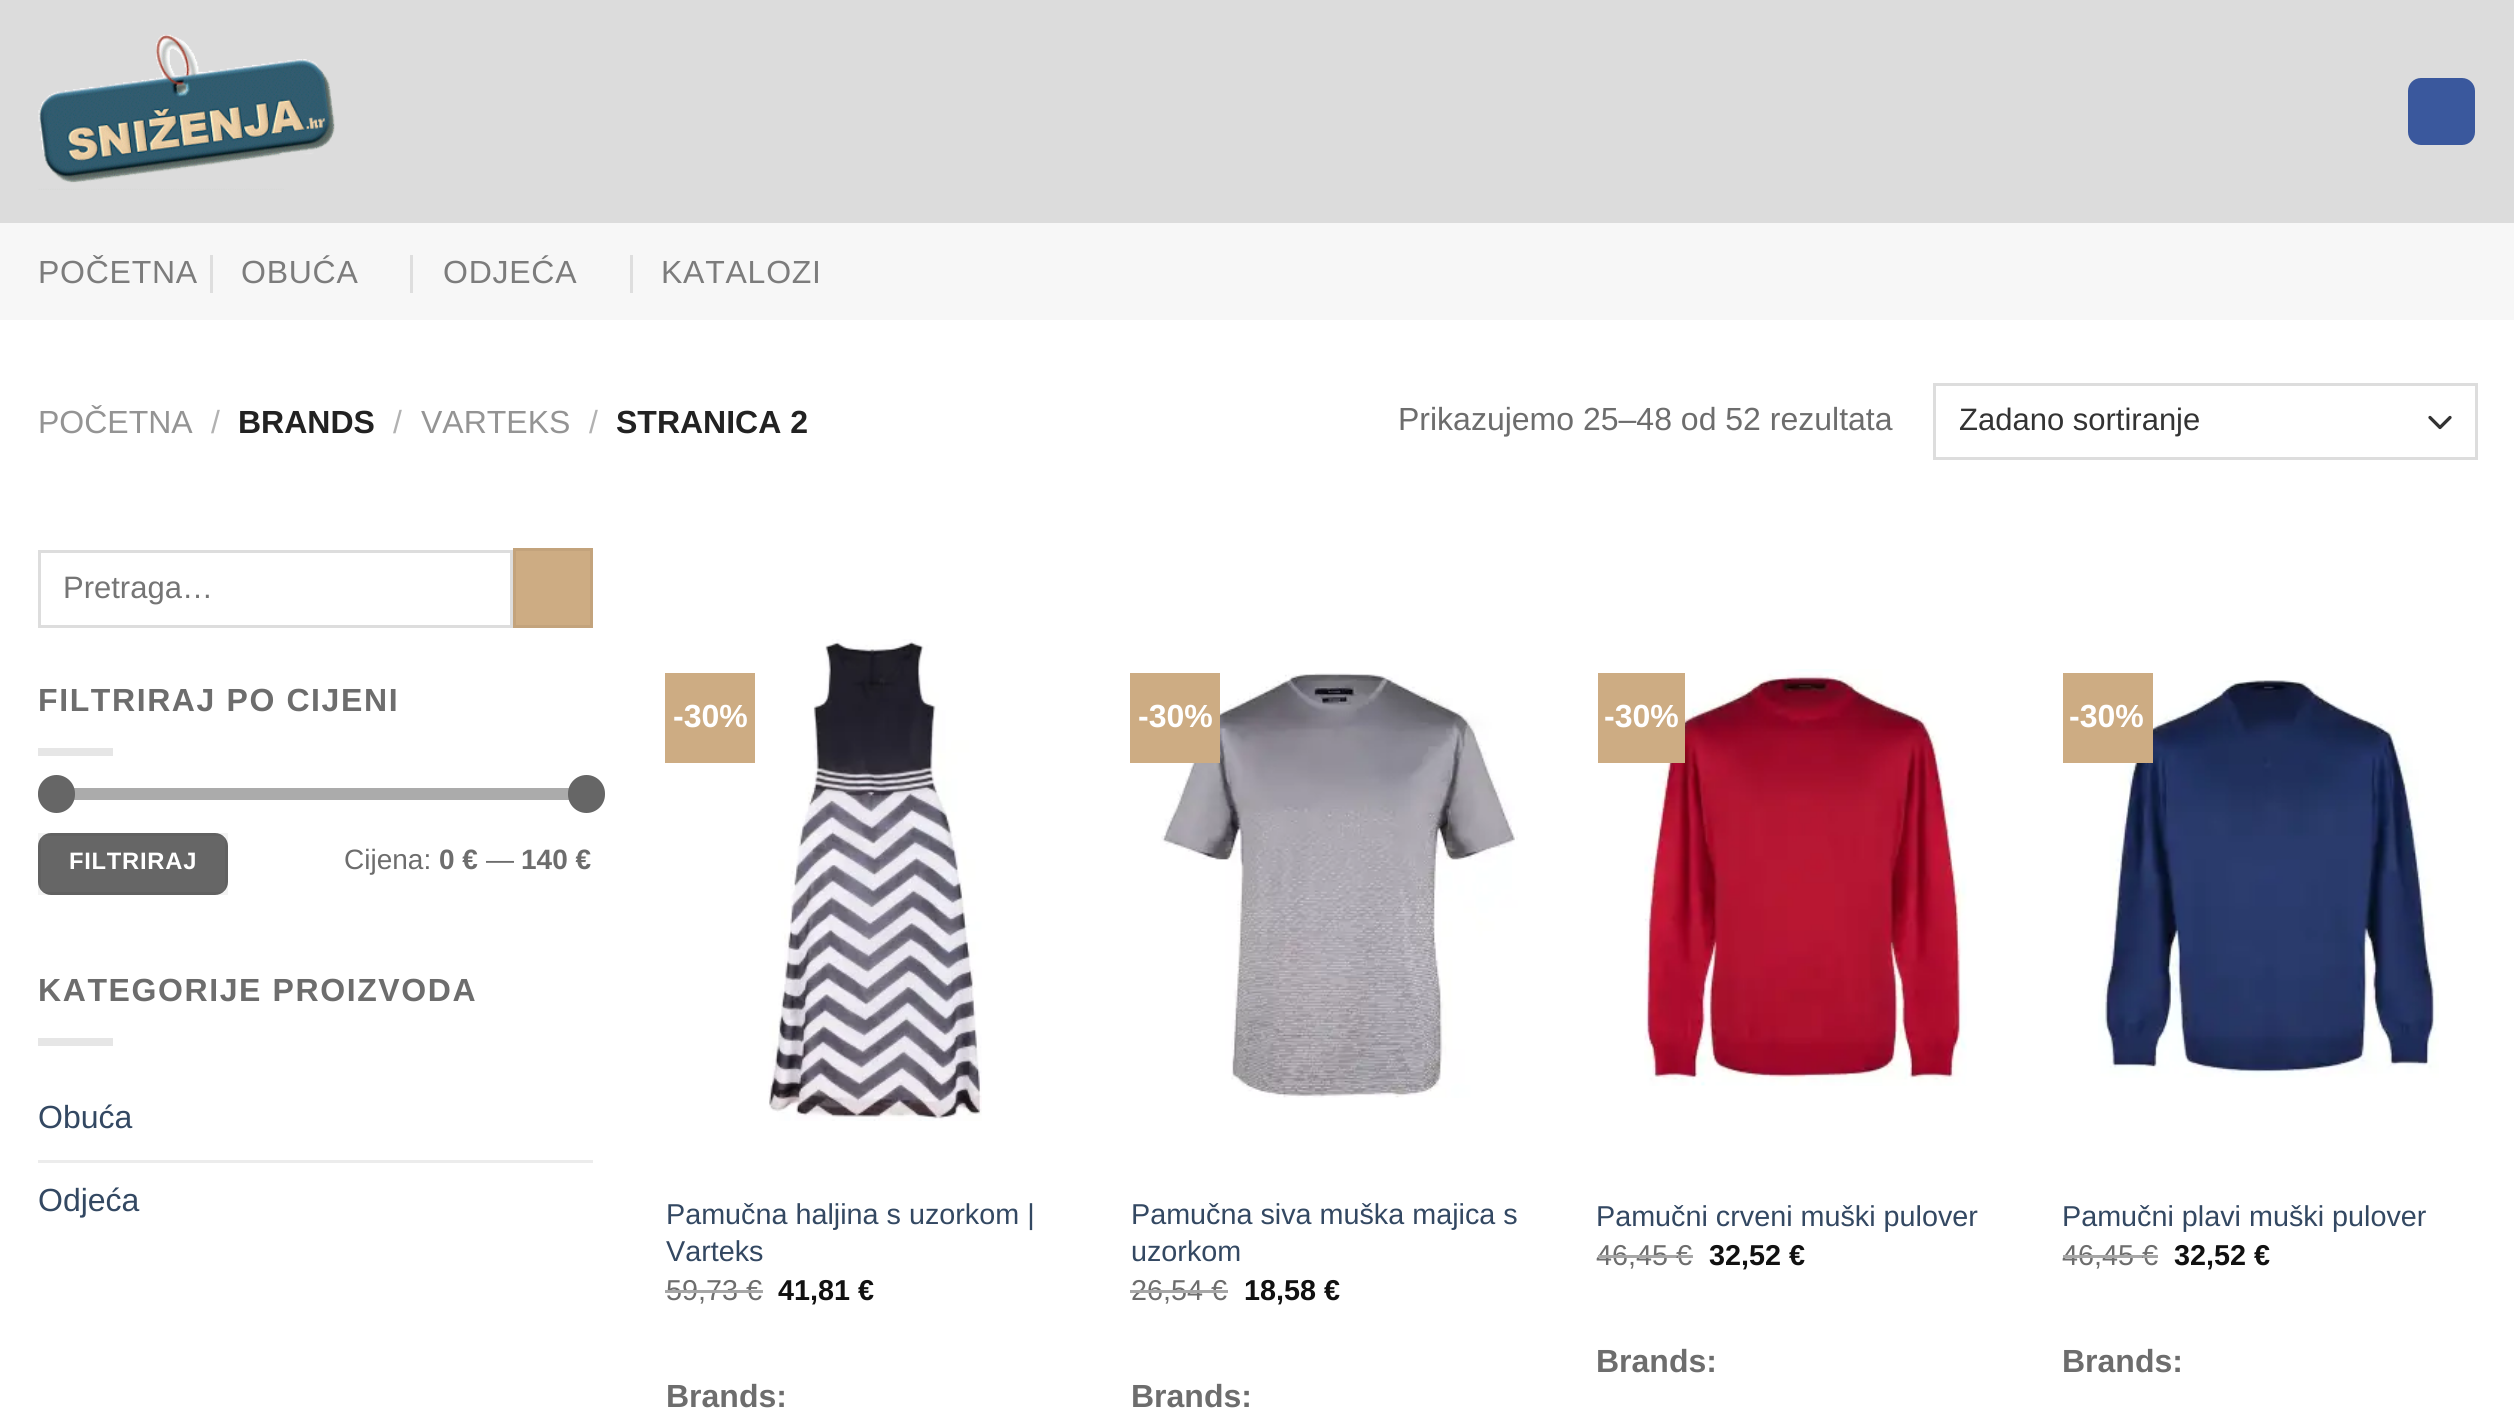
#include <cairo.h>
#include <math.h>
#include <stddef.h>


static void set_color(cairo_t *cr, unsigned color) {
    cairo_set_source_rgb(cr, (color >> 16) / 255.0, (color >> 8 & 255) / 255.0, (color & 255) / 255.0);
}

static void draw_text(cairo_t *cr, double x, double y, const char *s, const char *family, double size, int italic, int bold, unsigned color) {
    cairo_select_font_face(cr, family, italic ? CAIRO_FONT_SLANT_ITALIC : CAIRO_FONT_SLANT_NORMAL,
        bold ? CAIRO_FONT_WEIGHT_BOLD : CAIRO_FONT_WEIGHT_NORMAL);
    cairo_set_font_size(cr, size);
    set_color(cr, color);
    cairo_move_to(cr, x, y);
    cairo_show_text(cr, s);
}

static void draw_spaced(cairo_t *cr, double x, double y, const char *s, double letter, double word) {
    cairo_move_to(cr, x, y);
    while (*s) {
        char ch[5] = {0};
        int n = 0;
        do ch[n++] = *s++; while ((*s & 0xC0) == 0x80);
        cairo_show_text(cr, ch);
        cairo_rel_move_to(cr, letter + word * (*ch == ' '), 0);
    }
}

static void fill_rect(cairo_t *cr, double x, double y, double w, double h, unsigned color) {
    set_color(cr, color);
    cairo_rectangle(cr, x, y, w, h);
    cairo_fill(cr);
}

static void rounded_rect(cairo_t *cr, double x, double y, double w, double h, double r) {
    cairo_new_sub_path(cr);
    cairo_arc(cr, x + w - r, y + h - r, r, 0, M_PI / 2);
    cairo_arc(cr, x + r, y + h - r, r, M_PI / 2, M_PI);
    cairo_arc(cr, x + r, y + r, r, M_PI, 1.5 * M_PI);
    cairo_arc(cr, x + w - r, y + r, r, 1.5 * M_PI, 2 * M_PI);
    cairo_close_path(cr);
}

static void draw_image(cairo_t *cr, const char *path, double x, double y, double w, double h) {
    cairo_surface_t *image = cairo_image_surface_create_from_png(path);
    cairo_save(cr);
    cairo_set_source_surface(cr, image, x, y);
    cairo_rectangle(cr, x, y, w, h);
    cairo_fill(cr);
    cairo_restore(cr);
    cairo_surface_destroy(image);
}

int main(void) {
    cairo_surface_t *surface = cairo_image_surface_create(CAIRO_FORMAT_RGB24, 2514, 1415);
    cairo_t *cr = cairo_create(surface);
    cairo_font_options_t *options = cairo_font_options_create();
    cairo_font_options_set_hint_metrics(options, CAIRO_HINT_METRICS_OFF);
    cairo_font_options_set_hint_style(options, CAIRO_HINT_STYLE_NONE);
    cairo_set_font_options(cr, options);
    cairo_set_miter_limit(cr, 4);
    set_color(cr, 0xFFFFFF);
    cairo_paint(cr);
    fill_rect(cr, 0, 0, 2514, 223, 0xDCDCDC);
    draw_image(cr, "assets/img1.png", 38, 34, 297, 156);
    set_color(cr, 0x3A589D);
    rounded_rect(cr, 2409.5, 79.5, 64, 64, 11.5);
    cairo_fill_preserve(cr);
    cairo_set_line_width(cr, 3);
    cairo_stroke(cr);
    fill_rect(cr, 0, 223, 2514, 97, 0xF7F7F7);
    cairo_select_font_face(cr, "Liberation Sans", CAIRO_FONT_SLANT_NORMAL, CAIRO_FONT_WEIGHT_NORMAL);
    cairo_set_font_size(cr, 32);
    set_color(cr, 0x7C7C7C);
    draw_spaced(cr, 38, 283, "POČETNA", 0.75, 0);
    fill_rect(cr, 210, 255, 3, 38, 0xDEDEDE);
    set_color(cr, 0x7C7C7C);
    draw_spaced(cr, 241, 283, "OBUĆA", 0.75, 0);
    fill_rect(cr, 410, 255, 3, 38, 0xDEDEDE);
    set_color(cr, 0x7C7C7C);
    draw_spaced(cr, 443, 283, "ODJEĆA", 0.75, 0);
    fill_rect(cr, 630, 255, 3, 38, 0xDEDEDE);
    set_color(cr, 0x7C7C7C);
    draw_spaced(cr, 661, 283, "KATALOZI", 0.75, 0);
    draw_text(cr, 38, 433, "POČETNA", "Liberation Sans", 32, 0, 0, 0x949494);
    draw_text(cr, 211, 433, "/", "Liberation Sans", 32, 0, 0, 0xB2B2B2);
    draw_text(cr, 238, 433, "BRANDS", "Liberation Sans", 32, 0, 1, 0x222222);
    draw_text(cr, 393, 433, "/", "Liberation Sans", 32, 0, 0, 0xB2B2B2);
    draw_text(cr, 421, 433, "VARTEKS", "Liberation Sans", 32, 0, 0, 0x949494);
    draw_text(cr, 589, 433, "/", "Liberation Sans", 32, 0, 0, 0xB2B2B2);
    draw_text(cr, 616, 433, "STRANICA 2", "Liberation Sans", 32, 0, 1, 0x222222);
    draw_text(cr, 1398, 430, "Prikazujemo 25–48 od 52 rezultata", "Liberation Sans", 32, 0, 0, 0x6D6D6D);
    cairo_new_path(cr);
    cairo_move_to(cr, 2430, 417.5);
    cairo_line_to(cr, 2440, 427.5);
    cairo_line_to(cr, 2450, 417.5);
    set_color(cr, 0x333333);
    cairo_set_line_width(cr, 3.3);
    cairo_set_line_cap(cr, CAIRO_LINE_CAP_ROUND);
    cairo_set_line_join(cr, CAIRO_LINE_JOIN_ROUND);
    cairo_stroke(cr);
    cairo_rectangle(cr, 1934.5, 384.5, 542, 74);
    set_color(cr, 0xDDDDDD);
    cairo_set_line_width(cr, 3);
    cairo_set_line_cap(cr, CAIRO_LINE_CAP_BUTT);
    cairo_set_line_join(cr, CAIRO_LINE_JOIN_MITER);
    cairo_stroke(cr);
    draw_text(cr, 1959, 430, "Zadano sortiranje", "Liberation Sans", 31, 0, 0, 0x333333);
    cairo_rectangle(cr, 39.5, 551.5, 472, 75);
    set_color(cr, 0xDDDDDD);
    cairo_stroke(cr);
    draw_text(cr, 63, 598, "Pretraga…", "Liberation Sans", 31, 0, 0, 0x757575);
    set_color(cr, 0xCDAC83);
    cairo_rectangle(cr, 514.5, 549.5, 77, 77);
    cairo_fill_preserve(cr);
    set_color(cr, 0xC3A37C);
    cairo_stroke(cr);
    cairo_select_font_face(cr, "Liberation Sans", CAIRO_FONT_SLANT_NORMAL, CAIRO_FONT_WEIGHT_BOLD);
    cairo_set_font_size(cr, 32);
    set_color(cr, 0x6D6D6D);
    draw_spaced(cr, 38, 711, "FILTRIRAJ PO CIJENI", 1.6, 0);
    fill_rect(cr, 38, 748, 75, 8, 0xE6E6E6);
    set_color(cr, 0xF1F1F1);
    rounded_rect(cr, 38, 788, 555, 12, 6);
    cairo_fill(cr);
    cairo_set_source_rgba(cr, 0.4, 0.4, 0.4, 0.5);
    rounded_rect(cr, 38, 788, 555, 12, 6);
    cairo_fill(cr);
    set_color(cr, 0x666666);
    rounded_rect(cr, 38, 775, 37, 38, 18.5);
    cairo_fill(cr);
    rounded_rect(cr, 568, 775, 37, 38, 18.5);
    cairo_fill(cr);
    rounded_rect(cr, 38, 833, 190, 62, 13);
    cairo_fill(cr);
    cairo_rectangle(cr, 39.5, 834.5, 187, 59);
    cairo_set_source_rgba(cr, 0, 0, 0, 0.05);
    cairo_stroke(cr);
    cairo_set_font_size(cr, 23.75);
    set_color(cr, 0xFFFFFF);
    draw_spaced(cr, 69, 869, "FILTRIRAJ", 0.75, 0);
    draw_text(cr, 344, 869, "Cijena:", "Liberation Sans", 28, 0, 0, 0x6D6D6D);
    draw_text(cr, 439, 869, "0 €", "Liberation Sans", 28, 0, 1, 0x6D6D6D);
    draw_text(cr, 486, 869, "—", "Liberation Sans", 28, 0, 0, 0x6D6D6D);
    draw_text(cr, 521, 869, "140 €", "Liberation Sans", 28, 0, 1, 0x6D6D6D);
    cairo_set_font_size(cr, 32);
    draw_spaced(cr, 38, 1001, "KATEGORIJE PROIZVODA", 1.6, 0);
    fill_rect(cr, 38, 1038, 75, 8, 0xE6E6E6);
    draw_text(cr, 38, 1128, "Obuća", "Liberation Sans", 32, 0, 0, 0x334862);
    fill_rect(cr, 38, 1160, 555, 3, 0xECECEC);
    draw_text(cr, 38, 1211, "Odjeća", "Liberation Sans", 32, 0, 0, 0x334862);
    fill_rect(cr, 665, 673, 90, 90, 0xCDAC83);
    draw_text(cr, 673, 727, "-30%", "Liberation Sans", 32, 0, 1, 0xFFFFFF);
    draw_image(cr, "assets/img2.png", 768, 639, 214, 482);
    draw_text(cr, 666, 1224, "Pamučna haljina s uzorkom |", "Liberation Sans", 28.75, 0, 0, 0x334862);
    draw_text(cr, 666, 1261, "Varteks", "Liberation Sans", 28.75, 0, 0, 0x334862);
    draw_text(cr, 666, 1300, "59,73 €", "Liberation Sans", 28.75, 0, 0, 0x6D6D6D);
    fill_rect(cr, 665, 1290, 98, 3, 0xA7A7A7);
    draw_text(cr, 778, 1300, "41,81 €", "Liberation Sans", 28.75, 0, 1, 0x111111);
    draw_text(cr, 666, 1407, "Brands:", "Liberation Sans", 32, 0, 1, 0x6D6D6D);
    draw_image(cr, "assets/img3.png", 1160, 673, 358, 425);
    fill_rect(cr, 1130, 673, 90, 90, 0xCDAC83);
    draw_text(cr, 1138, 727, "-30%", "Liberation Sans", 32, 0, 1, 0xFFFFFF);
    draw_text(cr, 1131, 1224, "Pamučna siva muška majica s", "Liberation Sans", 28.75, 0, 0, 0x334862);
    draw_text(cr, 1131, 1261, "uzorkom", "Liberation Sans", 28.75, 0, 0, 0x334862);
    draw_text(cr, 1131, 1300, "26,54 €", "Liberation Sans", 28.75, 0, 0, 0x6D6D6D);
    fill_rect(cr, 1130, 1290, 98, 3, 0xA7A7A7);
    draw_text(cr, 1244, 1300, "18,58 €", "Liberation Sans", 28.75, 0, 1, 0x111111);
    draw_text(cr, 1131, 1407, "Brands:", "Liberation Sans", 32, 0, 1, 0x6D6D6D);
    draw_image(cr, "assets/img4.png", 1644, 669, 323, 417);
    fill_rect(cr, 1598, 673, 87, 90, 0xCDAC83);
    draw_text(cr, 1604, 727, "-30%", "Liberation Sans", 32, 0, 1, 0xFFFFFF);
    draw_text(cr, 1596, 1226, "Pamučni crveni muški pulover", "Liberation Sans", 28.75, 0, 0, 0x334862);
    draw_text(cr, 1596, 1265, "46,45", "Liberation Sans", 28.75, 0, 0, 0x6D6D6D);
    fill_rect(cr, 1598, 1255, 80, 3, 0xA7A7A7);
    draw_text(cr, 1676, 1265, "€", "Liberation Sans", 28.75, 0, 0, 0x6D6D6D);
    fill_rect(cr, 1678, 1255, 15, 3, 0xA7A7A7);
    draw_text(cr, 1709, 1265, "32,52 €", "Liberation Sans", 28.75, 0, 1, 0x111111);
    draw_text(cr, 1596, 1372, "Brands:", "Liberation Sans", 32, 0, 1, 0x6D6D6D);
    draw_image(cr, "assets/img5.png", 2098, 680, 341, 398);
    fill_rect(cr, 2063, 673, 90, 90, 0xCDAC83);
    draw_text(cr, 2069, 727, "-30%", "Liberation Sans", 32, 0, 1, 0xFFFFFF);
    draw_text(cr, 2062, 1226, "Pamučni plavi muški pulover", "Liberation Sans", 28.75, 0, 0, 0x334862);
    draw_text(cr, 2062, 1265, "46,45", "Liberation Sans", 28.75, 0, 0, 0x6D6D6D);
    fill_rect(cr, 2063, 1255, 80, 3, 0xA7A7A7);
    draw_text(cr, 2142, 1265, "€", "Liberation Sans", 28.75, 0, 0, 0x6D6D6D);
    fill_rect(cr, 2143, 1255, 15, 3, 0xA7A7A7);
    draw_text(cr, 2174, 1265, "32,52 €", "Liberation Sans", 28.75, 0, 1, 0x111111);
    draw_text(cr, 2062, 1372, "Brands:", "Liberation Sans", 32, 0, 1, 0x6D6D6D);
    cairo_surface_write_to_png(surface, "output.png");
    cairo_font_options_destroy(options);
    cairo_destroy(cr);
    cairo_surface_destroy(surface);
    return 0;
}
